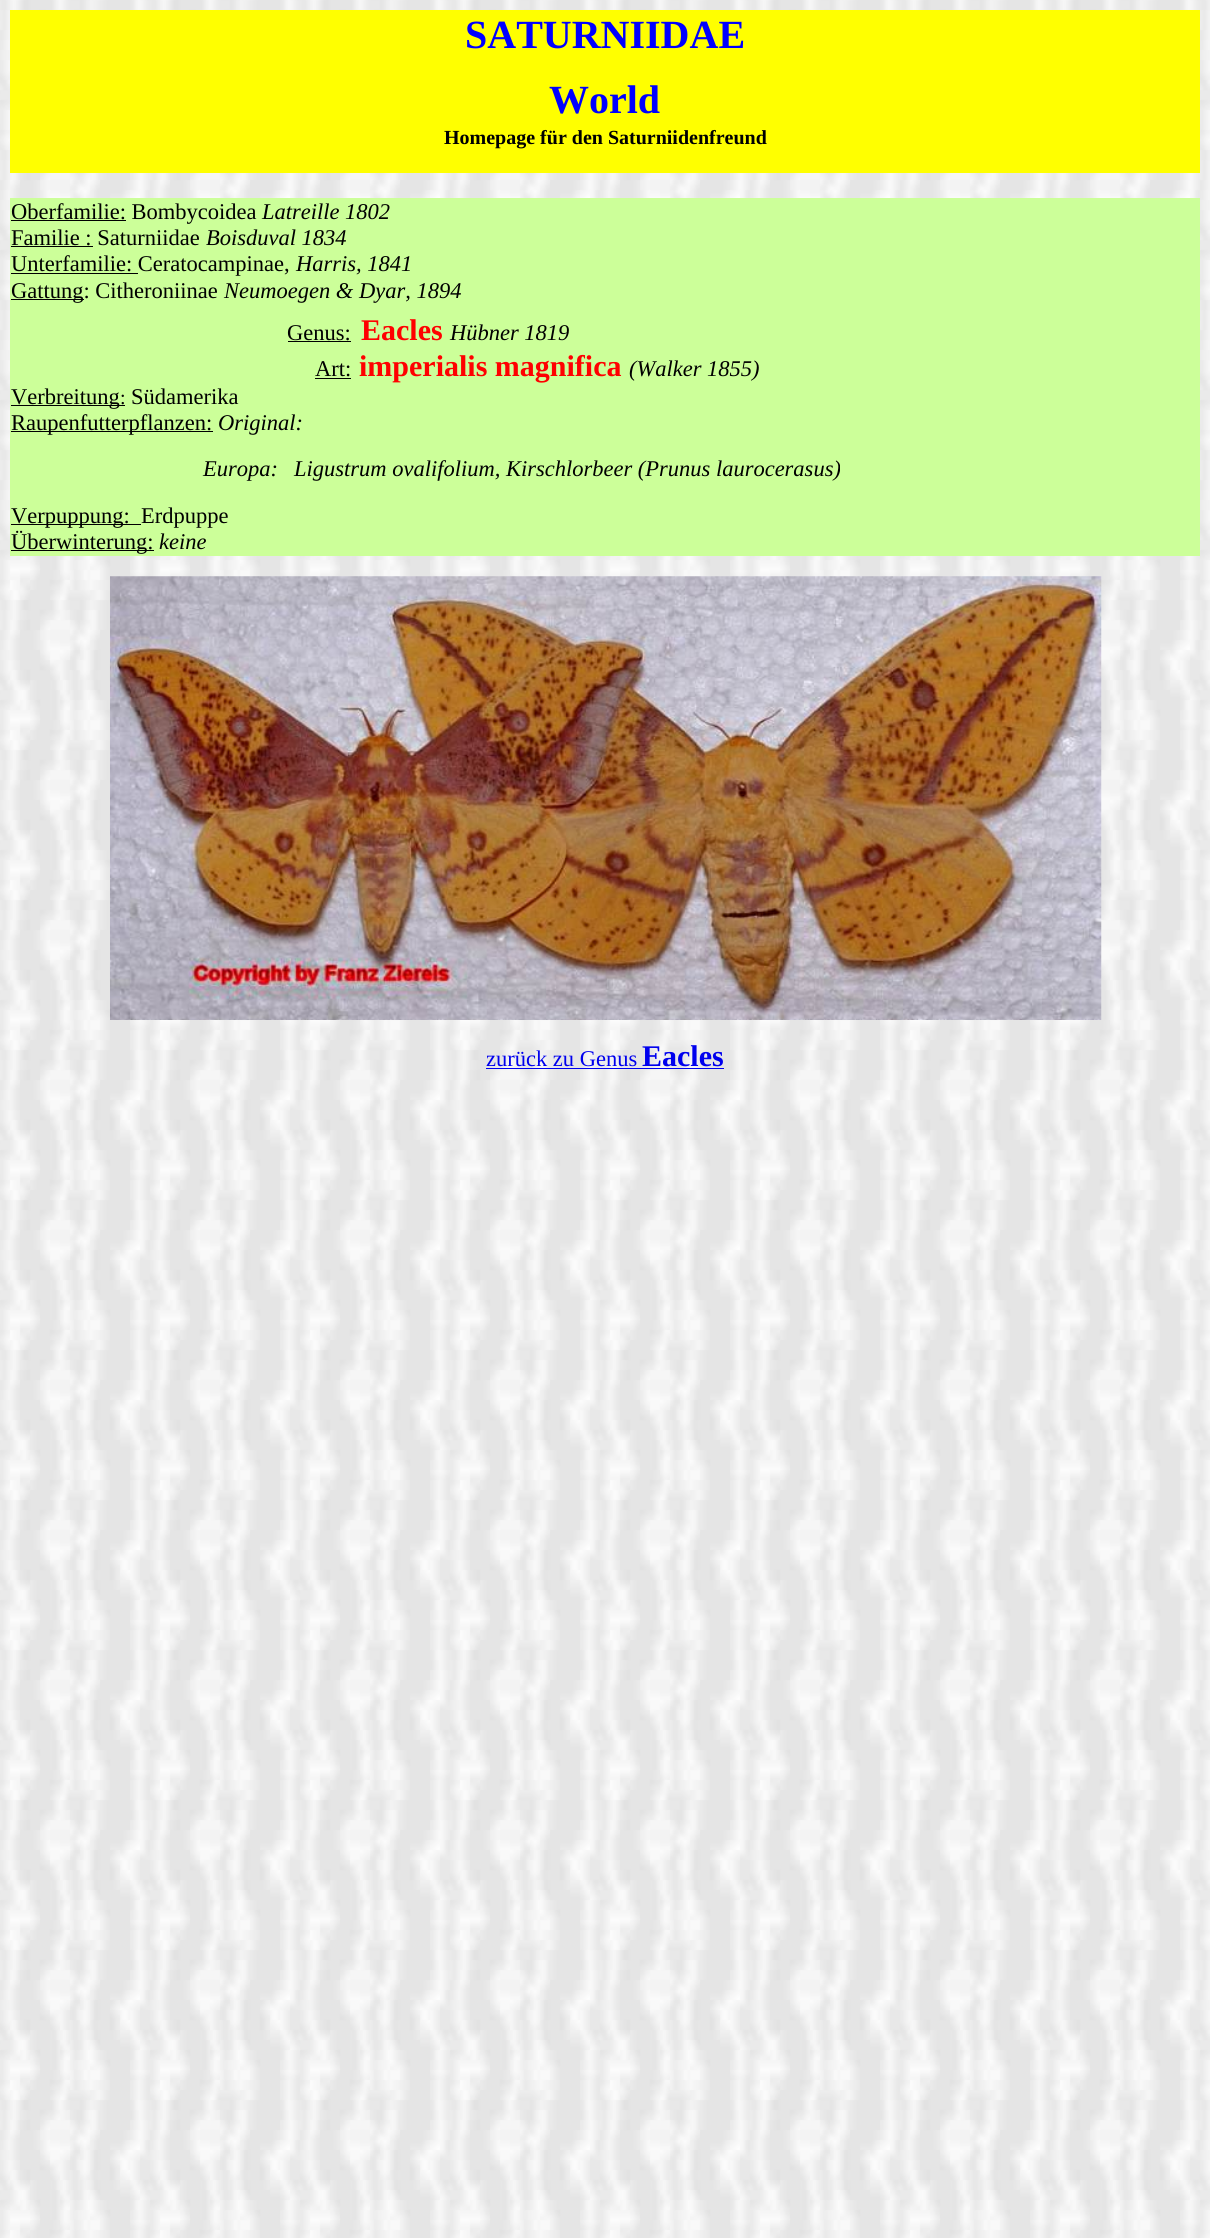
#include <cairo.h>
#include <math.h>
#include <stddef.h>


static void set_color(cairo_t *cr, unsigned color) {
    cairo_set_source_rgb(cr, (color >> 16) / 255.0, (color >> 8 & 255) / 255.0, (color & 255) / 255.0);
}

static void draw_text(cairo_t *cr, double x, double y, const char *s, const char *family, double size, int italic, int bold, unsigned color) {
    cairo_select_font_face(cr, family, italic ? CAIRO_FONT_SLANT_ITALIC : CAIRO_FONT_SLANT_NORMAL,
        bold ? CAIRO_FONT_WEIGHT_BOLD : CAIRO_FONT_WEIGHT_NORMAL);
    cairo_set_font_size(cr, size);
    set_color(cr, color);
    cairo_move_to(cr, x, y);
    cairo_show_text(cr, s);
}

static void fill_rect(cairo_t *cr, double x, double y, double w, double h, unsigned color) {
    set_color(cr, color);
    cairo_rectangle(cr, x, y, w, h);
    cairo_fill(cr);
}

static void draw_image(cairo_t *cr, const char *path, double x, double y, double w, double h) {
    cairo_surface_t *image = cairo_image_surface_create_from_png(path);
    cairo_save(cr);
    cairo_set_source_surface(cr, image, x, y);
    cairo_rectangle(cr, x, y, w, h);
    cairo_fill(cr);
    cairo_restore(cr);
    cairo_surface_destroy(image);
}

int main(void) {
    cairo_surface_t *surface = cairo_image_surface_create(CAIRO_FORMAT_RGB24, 1210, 2238);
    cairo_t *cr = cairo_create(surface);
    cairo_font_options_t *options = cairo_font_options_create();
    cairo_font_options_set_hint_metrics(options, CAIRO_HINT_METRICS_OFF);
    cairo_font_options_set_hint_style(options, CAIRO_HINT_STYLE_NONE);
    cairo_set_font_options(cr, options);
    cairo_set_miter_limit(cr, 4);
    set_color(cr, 0xFFFFFF);
    cairo_paint(cr);
    draw_image(cr, "assets/img1.png", 0, 0, 1210, 2238);
    fill_rect(cr, 10, 10, 1190, 163, 0xFFFF00);
    draw_text(cr, 465, 48, "SATURNIIDAE", "Liberation Serif", 40, 0, 1, 0x0000FF);
    draw_text(cr, 549, 113, "World", "Liberation Serif", 40, 0, 1, 0x0000FF);
    draw_text(cr, 444, 144, "Homepage für den Saturniidenfreund", "Liberation Serif", 20, 0, 1, 0x000000);
    fill_rect(cr, 10, 198, 1190, 358, 0xCCFF99);
    fill_rect(cr, 11, 220, 115, 1, 0x000000);
    draw_text(cr, 11, 219, "Oberfamilie: Bombycoidea", "Liberation Serif", 22.5, 0, 0, 0x000000);
    draw_text(cr, 262, 219, "Latreille 1802", "Liberation Serif", 22.5, 1, 0, 0x000000);
    draw_text(cr, 11, 245, "Familie : Saturniidae", "Liberation Serif", 22.5, 0, 0, 0x000000);
    fill_rect(cr, 11, 246, 82, 1, 0x000000);
    draw_text(cr, 206, 245, "Boisduval 1834", "Liberation Serif", 22.5, 1, 0, 0x000000);
    fill_rect(cr, 11, 273, 127, 1, 0x000000);
    draw_text(cr, 11, 271, "Unterfamilie: Ceratocampinae,", "Liberation Serif", 22.5, 0, 0, 0x000000);
    draw_text(cr, 296, 271, "Harris, 1841", "Liberation Serif", 22.5, 1, 0, 0x000000);
    fill_rect(cr, 11, 299, 73, 1, 0x000000);
    draw_text(cr, 11, 298, "Gattung: Citheroniinae", "Liberation Serif", 22.5, 0, 0, 0x000000);
    draw_text(cr, 224, 298, "Neumoegen & Dyar, 1894", "Liberation Serif", 22.5, 1, 0, 0x000000);
    draw_text(cr, 287, 340, "Genus:", "Liberation Serif", 22.5, 0, 0, 0x000000);
    fill_rect(cr, 288, 341, 63, 1, 0x000000);
    draw_text(cr, 361, 340, "Eacles", "Liberation Serif", 30, 0, 1, 0xFF0000);
    draw_text(cr, 450, 340, "Hübner 1819", "Liberation Serif", 22.5, 1, 0, 0x000000);
    draw_text(cr, 315, 376, "Art:", "Liberation Serif", 22.5, 0, 0, 0x000000);
    fill_rect(cr, 315, 378, 36, 1, 0x000000);
    draw_text(cr, 359, 376, "imperialis magnifica", "Liberation Serif", 30, 0, 1, 0xFF0000);
    draw_text(cr, 629, 376, "(Walker 1855)", "Liberation Serif", 22.5, 1, 0, 0x000000);
    fill_rect(cr, 11, 405, 114, 1, 0x000000);
    draw_text(cr, 11, 404, "Verbreitung", "Liberation Serif", 22.5, 0, 0, 0x000000);
    draw_text(cr, 120, 404, ":", "Liberation Serif", 20, 0, 0, 0x000000);
    draw_text(cr, 131, 404, "Südamerika", "Liberation Serif", 22.5, 0, 0, 0x000000);
    fill_rect(cr, 11, 431, 202, 1, 0x000000);
    draw_text(cr, 11, 430, "Raupenfutterpflanzen:", "Liberation Serif", 22.5, 0, 0, 0x000000);
    draw_text(cr, 218, 430, "Original:", "Liberation Serif", 22.5, 1, 0, 0x000000);
    draw_text(cr, 203, 476, "Europa:", "Liberation Serif", 22.5, 1, 0, 0x000000);
    draw_text(cr, 294, 476, "Ligustrum ovalifolium, Kirschlorbeer (Prunus laurocerasus)", "Liberation Serif", 22.5, 1, 0, 0x000000);
    fill_rect(cr, 11, 524, 130, 1, 0x000000);
    draw_text(cr, 11, 523, "Verpuppung:", "Liberation Serif", 22.5, 0, 0, 0x000000);
    draw_text(cr, 141, 523, "Erdpuppe", "Liberation Serif", 22.5, 0, 0, 0x000000);
    fill_rect(cr, 11, 550, 143, 1, 0x000000);
    draw_text(cr, 11, 549, "Überwinterung:", "Liberation Serif", 22.5, 0, 0, 0x000000);
    draw_text(cr, 159, 549, "keine", "Liberation Serif", 22.5, 1, 0, 0x000000);
    draw_image(cr, "assets/img2.png", 110, 576, 992, 444);
    draw_text(cr, 486, 1066, "zurück zu Genus", "Liberation Serif", 22.5, 0, 0, 0x0000EE);
    fill_rect(cr, 486, 1068, 238, 1, 0x0000EE);
    draw_text(cr, 642, 1066, "Eacles", "Liberation Serif", 30, 0, 1, 0x0000EE);
    cairo_surface_write_to_png(surface, "output.png");
    cairo_font_options_destroy(options);
    cairo_destroy(cr);
    cairo_surface_destroy(surface);
    return 0;
}
